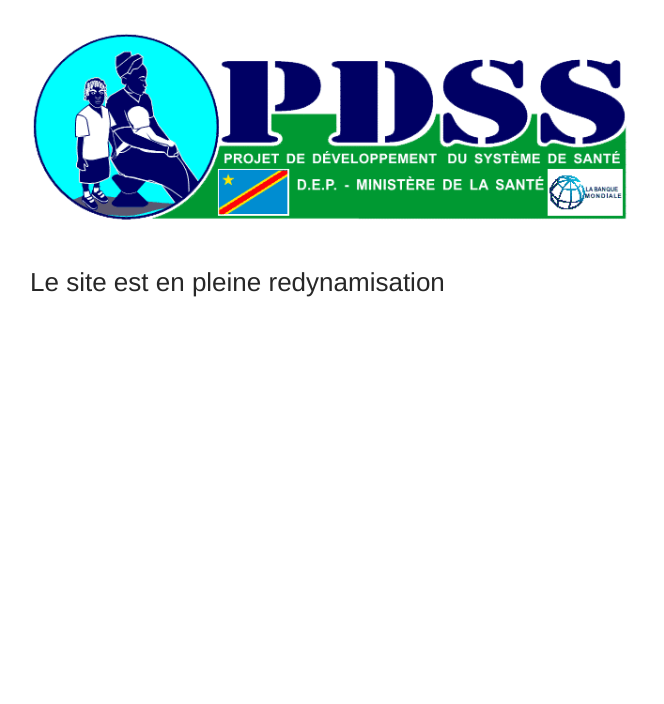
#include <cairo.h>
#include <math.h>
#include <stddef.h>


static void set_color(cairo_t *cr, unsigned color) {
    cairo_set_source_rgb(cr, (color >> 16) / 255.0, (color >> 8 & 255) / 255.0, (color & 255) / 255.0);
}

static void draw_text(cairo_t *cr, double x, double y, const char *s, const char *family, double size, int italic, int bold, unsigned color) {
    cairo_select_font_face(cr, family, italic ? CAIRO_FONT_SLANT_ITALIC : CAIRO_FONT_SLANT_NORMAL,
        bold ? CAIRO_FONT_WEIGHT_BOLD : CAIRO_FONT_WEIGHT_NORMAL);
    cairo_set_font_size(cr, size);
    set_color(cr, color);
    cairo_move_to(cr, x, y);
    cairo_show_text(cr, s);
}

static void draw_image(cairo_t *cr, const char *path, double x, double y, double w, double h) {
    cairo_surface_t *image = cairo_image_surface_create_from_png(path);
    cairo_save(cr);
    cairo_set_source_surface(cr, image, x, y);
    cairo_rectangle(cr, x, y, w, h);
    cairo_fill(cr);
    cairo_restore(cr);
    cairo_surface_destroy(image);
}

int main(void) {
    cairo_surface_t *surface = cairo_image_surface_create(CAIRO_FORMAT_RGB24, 664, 704);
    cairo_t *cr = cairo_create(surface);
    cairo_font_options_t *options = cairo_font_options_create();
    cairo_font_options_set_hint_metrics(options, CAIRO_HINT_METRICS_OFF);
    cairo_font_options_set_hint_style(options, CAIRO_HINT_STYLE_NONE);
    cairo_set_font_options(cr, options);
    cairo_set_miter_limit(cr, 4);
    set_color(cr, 0xFFFFFF);
    cairo_paint(cr);
    draw_image(cr, "assets/img1.png", 33, 33, 594, 187);
    draw_text(cr, 30, 291, "Le site est en pleine redynamisation", "Liberation Sans", 26, 0, 0, 0x272727);
    cairo_surface_write_to_png(surface, "output.png");
    cairo_font_options_destroy(options);
    cairo_destroy(cr);
    cairo_surface_destroy(surface);
    return 0;
}
